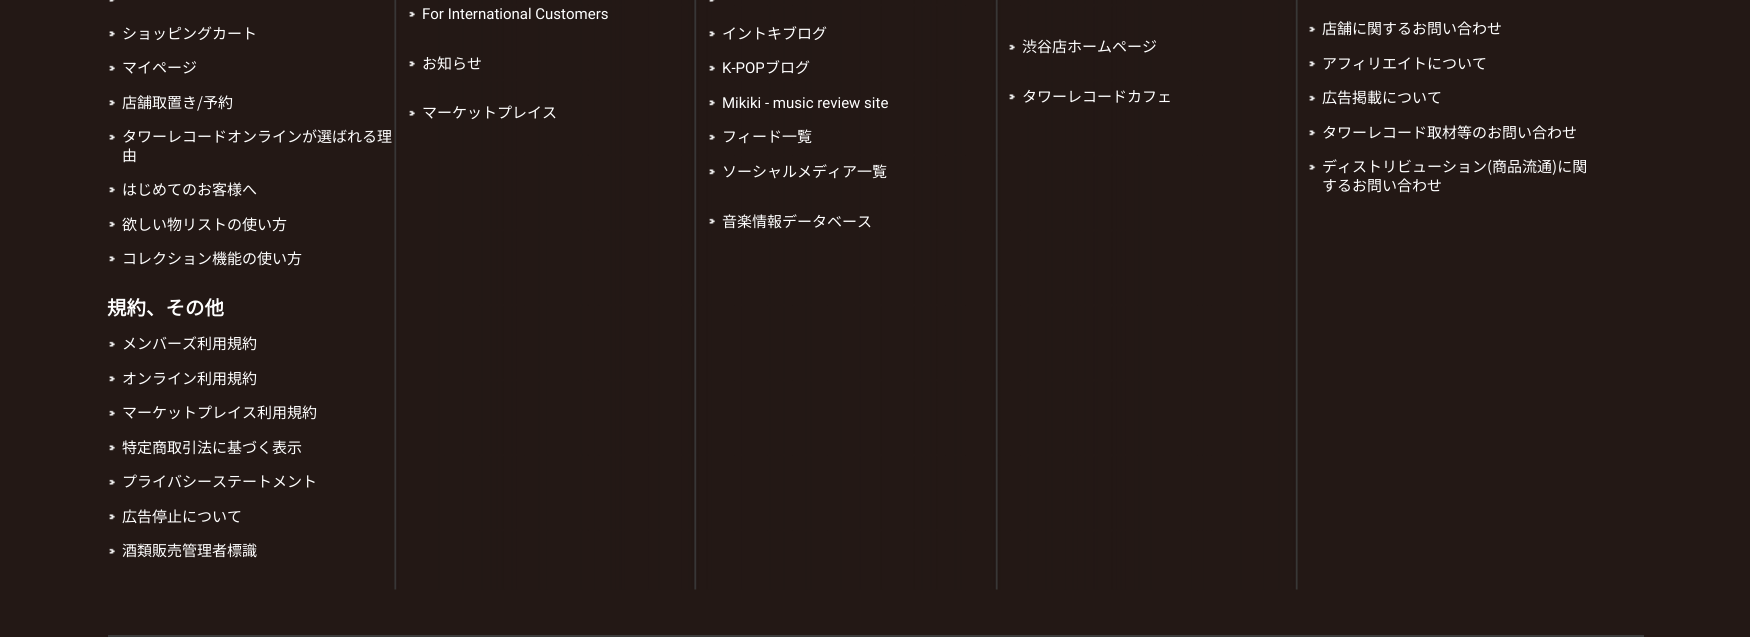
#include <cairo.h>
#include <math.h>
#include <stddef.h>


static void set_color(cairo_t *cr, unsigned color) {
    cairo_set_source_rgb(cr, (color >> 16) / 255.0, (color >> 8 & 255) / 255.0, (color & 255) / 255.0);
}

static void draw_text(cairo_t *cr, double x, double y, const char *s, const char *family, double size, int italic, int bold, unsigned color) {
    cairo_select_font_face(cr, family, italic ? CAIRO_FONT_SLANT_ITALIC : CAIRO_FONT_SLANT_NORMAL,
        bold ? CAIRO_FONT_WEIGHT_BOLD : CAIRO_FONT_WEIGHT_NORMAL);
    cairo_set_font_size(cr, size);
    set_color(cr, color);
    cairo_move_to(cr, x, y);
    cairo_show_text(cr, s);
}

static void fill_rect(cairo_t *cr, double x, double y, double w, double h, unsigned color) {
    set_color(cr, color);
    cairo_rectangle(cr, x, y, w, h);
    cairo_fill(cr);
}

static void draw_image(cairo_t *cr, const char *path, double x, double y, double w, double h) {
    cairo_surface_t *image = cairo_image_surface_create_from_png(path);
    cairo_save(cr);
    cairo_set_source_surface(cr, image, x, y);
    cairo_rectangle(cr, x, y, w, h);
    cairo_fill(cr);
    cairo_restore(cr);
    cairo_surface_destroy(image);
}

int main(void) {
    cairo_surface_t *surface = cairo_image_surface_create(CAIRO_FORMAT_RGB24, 1750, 637);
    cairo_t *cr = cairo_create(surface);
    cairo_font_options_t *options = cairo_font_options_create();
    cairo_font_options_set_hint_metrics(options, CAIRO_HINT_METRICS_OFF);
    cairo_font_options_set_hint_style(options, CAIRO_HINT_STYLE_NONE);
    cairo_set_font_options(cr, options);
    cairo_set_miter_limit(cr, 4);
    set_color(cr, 0x231815);
    cairo_paint(cr);
    draw_image(cr, "assets/img1.png", 394, 0, 904, 590);
    draw_image(cr, "assets/img2.png", 109, 0, 6, 2);
    draw_image(cr, "assets/img3.png", 109, 31, 6, 6);
    draw_text(cr, 122, 39, "ショッピングカート", "Noto Sans JP Thin", 15, 0, 0, 0xFFFFFF);
    draw_image(cr, "assets/img4.png", 109, 65, 6, 6);
    draw_text(cr, 122, 73, "マイページ", "Noto Sans JP Thin", 15, 0, 0, 0xFFFFFF);
    draw_image(cr, "assets/img3.png", 109, 100, 6, 6);
    draw_text(cr, 122, 108, "店舗取置き/予約", "Noto Sans JP Thin", 15, 0, 0, 0xFFFFFF);
    draw_image(cr, "assets/img4.png", 109, 134, 6, 6);
    draw_text(cr, 122, 142, "タワーレコードオンラインが選ばれる理", "Noto Sans JP Thin", 15, 0, 0, 0xFFFFFF);
    draw_text(cr, 122, 161, "由", "Noto Sans JP Thin", 15, 0, 0, 0xFFFFFF);
    draw_image(cr, "assets/img3.png", 109, 187, 6, 6);
    draw_text(cr, 122, 195, "はじめてのお客様へ", "Noto Sans JP Thin", 15, 0, 0, 0xFFFFFF);
    draw_image(cr, "assets/img4.png", 109, 221, 6, 6);
    draw_text(cr, 122, 230, "欲しい物リストの使い方", "Noto Sans JP Thin", 15, 0, 0, 0xFFFFFF);
    draw_image(cr, "assets/img3.png", 109, 256, 6, 6);
    draw_text(cr, 122, 264, "コレクション機能の使い方", "Noto Sans JP Thin", 15, 0, 0, 0xFFFFFF);
    draw_text(cr, 107, 315, "規約、その他", "Noto Sans JP", 19.5, 0, 1, 0xFFFFFF);
    draw_image(cr, "assets/img4.png", 109, 341, 6, 6);
    draw_text(cr, 122, 349, "メンバーズ利用規約", "Noto Sans JP Thin", 15, 0, 0, 0xFFFFFF);
    draw_image(cr, "assets/img3.png", 109, 376, 6, 6);
    draw_text(cr, 122, 384, "オンライン利用規約", "Noto Sans JP Thin", 15, 0, 0, 0xFFFFFF);
    draw_image(cr, "assets/img4.png", 109, 410, 6, 6);
    draw_text(cr, 122, 418, "マーケットプレイス利用規約", "Noto Sans JP Thin", 15, 0, 0, 0xFFFFFF);
    draw_image(cr, "assets/img3.png", 109, 445, 6, 6);
    draw_text(cr, 122, 453, "特定商取引法に基づく表示", "Noto Sans JP Thin", 15, 0, 0, 0xFFFFFF);
    draw_image(cr, "assets/img4.png", 109, 479, 6, 6);
    draw_text(cr, 122, 487, "プライバシーステートメント", "Noto Sans JP Thin", 15, 0, 0, 0xFFFFFF);
    draw_image(cr, "assets/img3.png", 109, 514, 6, 6);
    draw_text(cr, 122, 522, "広告停止について", "Noto Sans JP Thin", 15, 0, 0, 0xFFFFFF);
    draw_image(cr, "assets/img4.png", 109, 548, 6, 6);
    draw_text(cr, 122, 556, "酒類販売管理者標識", "Noto Sans JP Thin", 15, 0, 0, 0xFFFFFF);
    draw_image(cr, "assets/img4.png", 409, 11, 6, 6);
    draw_text(cr, 422, 19, "For International Customers", "Roboto", 15, 0, 0, 0xFFFFFF);
    draw_image(cr, "assets/img3.png", 409, 61, 6, 6);
    draw_text(cr, 422, 69, "お知らせ", "Noto Sans JP Thin", 15, 0, 0, 0xFFFFFF);
    draw_image(cr, "assets/img4.png", 409, 110, 6, 6);
    draw_text(cr, 422, 118, "マーケットプレイス", "Noto Sans JP Thin", 15, 0, 0, 0xFFFFFF);
    draw_image(cr, "assets/img2.png", 709, 0, 6, 2);
    draw_image(cr, "assets/img3.png", 709, 31, 6, 6);
    draw_text(cr, 722, 39, "イントキブログ", "Noto Sans JP Thin", 15, 0, 0, 0xFFFFFF);
    draw_image(cr, "assets/img4.png", 709, 65, 6, 6);
    draw_text(cr, 722, 73, "K-POP", "Roboto", 15, 0, 0, 0xFFFFFF);
    draw_text(cr, 765, 73, "ブログ", "Noto Sans JP Thin", 15, 0, 0, 0xFFFFFF);
    draw_image(cr, "assets/img3.png", 709, 100, 6, 6);
    draw_text(cr, 722, 108, "Mikiki - music review site", "Roboto", 15, 0, 0, 0xFFFFFF);
    draw_image(cr, "assets/img4.png", 709, 134, 6, 6);
    draw_text(cr, 722, 142, "フィード一覧", "Noto Sans JP Thin", 15, 0, 0, 0xFFFFFF);
    draw_image(cr, "assets/img3.png", 709, 169, 6, 6);
    draw_text(cr, 722, 177, "ソーシャルメディア一覧", "Noto Sans JP Thin", 15, 0, 0, 0xFFFFFF);
    draw_image(cr, "assets/img4.png", 709, 218, 6, 6);
    draw_text(cr, 722, 227, "音楽情報データベース", "Noto Sans JP Thin", 15, 0, 0, 0xFFFFFF);
    draw_image(cr, "assets/img4.png", 1009, 44, 6, 6);
    draw_text(cr, 1022, 52, "渋谷店ホームページ", "Noto Sans JP Thin", 15, 0, 0, 0xFFFFFF);
    draw_image(cr, "assets/img3.png", 1009, 94, 6, 6);
    draw_text(cr, 1022, 102, "タワーレコードカフェ", "Noto Sans JP Thin", 15, 0, 0, 0xFFFFFF);
    draw_image(cr, "assets/img5.png", 1309, 26, 7, 6);
    draw_text(cr, 1322, 34, "店舗に関するお問い合わせ", "Noto Sans JP Thin", 15, 0, 0, 0xFFFFFF);
    draw_image(cr, "assets/img6.png", 1309, 61, 7, 6);
    draw_text(cr, 1322, 69, "アフィリエイトについて", "Noto Sans JP Thin", 15, 0, 0, 0xFFFFFF);
    draw_image(cr, "assets/img5.png", 1309, 95, 7, 6);
    draw_text(cr, 1322, 103, "広告掲載について", "Noto Sans JP Thin", 15, 0, 0, 0xFFFFFF);
    draw_image(cr, "assets/img6.png", 1309, 130, 7, 6);
    draw_text(cr, 1322, 138, "タワーレコード取材等のお問い合わせ", "Noto Sans JP Thin", 15, 0, 0, 0xFFFFFF);
    draw_image(cr, "assets/img5.png", 1309, 164, 7, 6);
    draw_text(cr, 1322, 172, "ディストリビューション(商品流通)に関", "Noto Sans JP Thin", 15, 0, 0, 0xFFFFFF);
    draw_text(cr, 1322, 191, "するお問い合わせ", "Noto Sans JP Thin", 15, 0, 0, 0xFFFFFF);
    fill_rect(cr, 108, 635, 1536, 2, 0x3B3B3B);
    cairo_surface_write_to_png(surface, "output.png");
    cairo_font_options_destroy(options);
    cairo_destroy(cr);
    cairo_surface_destroy(surface);
    return 0;
}
